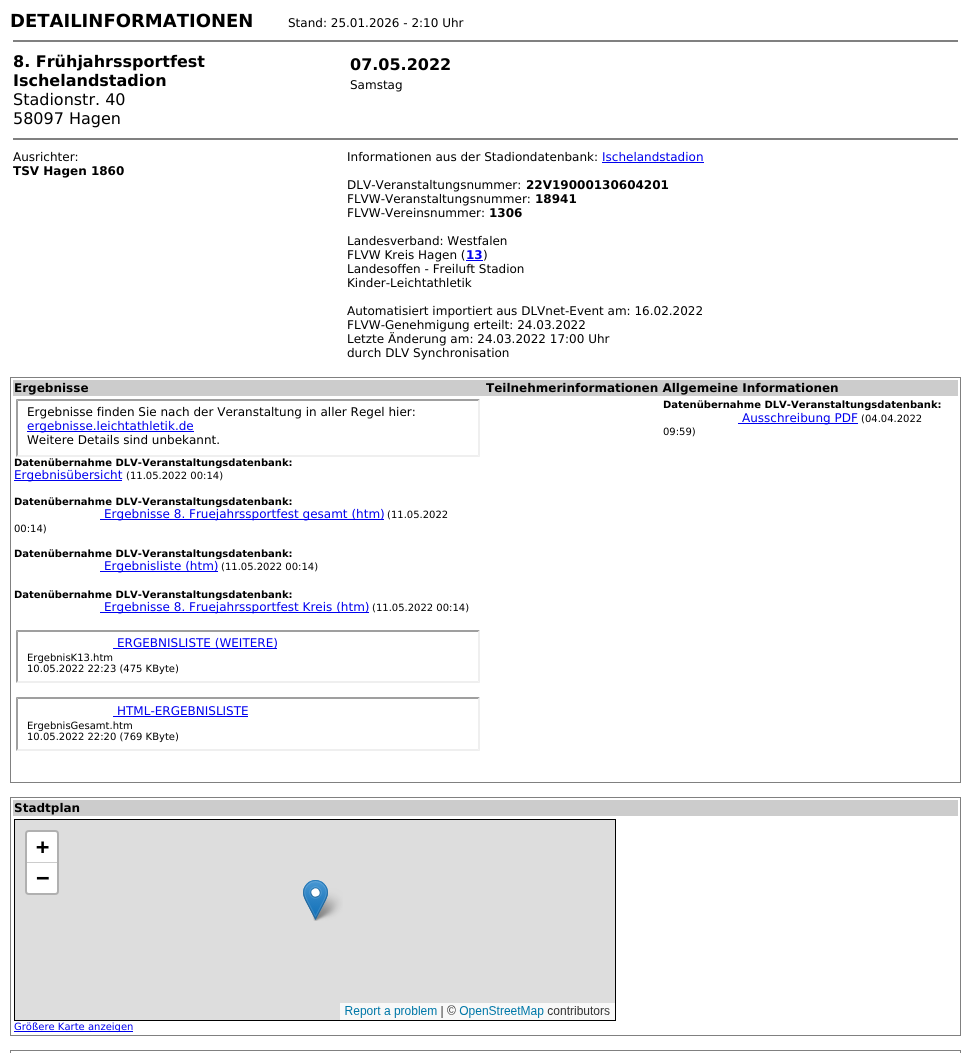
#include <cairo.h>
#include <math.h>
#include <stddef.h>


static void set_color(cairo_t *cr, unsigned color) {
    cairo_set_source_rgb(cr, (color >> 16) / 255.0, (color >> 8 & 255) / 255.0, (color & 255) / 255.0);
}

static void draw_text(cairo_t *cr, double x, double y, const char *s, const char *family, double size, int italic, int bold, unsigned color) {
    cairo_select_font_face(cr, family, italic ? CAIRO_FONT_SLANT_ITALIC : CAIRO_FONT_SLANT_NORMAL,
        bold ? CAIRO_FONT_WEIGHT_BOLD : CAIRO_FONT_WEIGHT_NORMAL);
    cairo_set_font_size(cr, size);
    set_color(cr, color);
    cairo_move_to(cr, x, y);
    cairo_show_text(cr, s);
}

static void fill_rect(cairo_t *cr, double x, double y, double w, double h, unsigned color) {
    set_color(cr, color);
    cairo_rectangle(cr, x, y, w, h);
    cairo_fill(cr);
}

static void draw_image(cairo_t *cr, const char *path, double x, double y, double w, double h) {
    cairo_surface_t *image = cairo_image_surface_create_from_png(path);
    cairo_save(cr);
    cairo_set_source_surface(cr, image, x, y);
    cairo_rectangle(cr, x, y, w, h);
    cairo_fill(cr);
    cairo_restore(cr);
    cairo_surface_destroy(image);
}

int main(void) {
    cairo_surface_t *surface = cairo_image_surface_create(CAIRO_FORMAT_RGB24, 969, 1053);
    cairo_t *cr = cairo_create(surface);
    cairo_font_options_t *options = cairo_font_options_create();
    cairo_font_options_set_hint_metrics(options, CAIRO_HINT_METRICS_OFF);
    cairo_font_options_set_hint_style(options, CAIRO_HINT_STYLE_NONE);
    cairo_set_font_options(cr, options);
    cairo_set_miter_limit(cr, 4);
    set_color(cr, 0xFFFFFF);
    cairo_paint(cr);
    draw_text(cr, 10, 27, "DETAILINFORMATIONEN", "DejaVu Sans", 18, 0, 1, 0x000000);
    draw_text(cr, 288, 27, "Stand: 25.01.2026 - 2:10 Uhr", "DejaVu Sans", 12, 0, 0, 0x000000);
    fill_rect(cr, 13, 40, 945, 2, 0x808080);
    draw_text(cr, 13, 67, "8. Frühjahrssportfest", "DejaVu Sans", 16, 0, 1, 0x000000);
    draw_text(cr, 13, 86, "Ischelandstadion", "DejaVu Sans", 16, 0, 1, 0x000000);
    draw_text(cr, 13, 105, "Stadionstr. 40", "DejaVu Sans", 16, 0, 0, 0x000000);
    draw_text(cr, 13, 124, "58097 Hagen", "DejaVu Sans", 16, 0, 0, 0x000000);
    draw_text(cr, 350, 70, "07.05.2022", "DejaVu Sans", 16, 0, 1, 0x000000);
    draw_text(cr, 350, 89, "Samstag", "DejaVu Sans", 12, 0, 0, 0x000000);
    fill_rect(cr, 13, 138, 945, 2, 0x808080);
    draw_text(cr, 13, 161, "Ausrichter:", "DejaVu Sans", 12, 0, 0, 0x000000);
    draw_text(cr, 13, 175, "TSV Hagen 1860", "DejaVu Sans", 12, 0, 1, 0x000000);
    draw_text(cr, 347, 161, "Informationen aus der Stadiondatenbank:", "DejaVu Sans", 12, 0, 0, 0x000000);
    draw_text(cr, 602, 161, "Ischelandstadion", "DejaVu Sans", 12, 0, 0, 0x0000EE);
    fill_rect(cr, 602, 162, 102, 1, 0x0000EE);
    draw_text(cr, 347, 189, "DLV-Veranstaltungsnummer:", "DejaVu Sans", 12, 0, 0, 0x000000);
    draw_text(cr, 526, 189, "22V19000130604201", "DejaVu Sans", 12, 0, 1, 0x000000);
    draw_text(cr, 347, 203, "FLVW-Veranstaltungsnummer:", "DejaVu Sans", 12, 0, 0, 0x000000);
    draw_text(cr, 535, 203, "18941", "DejaVu Sans", 12, 0, 1, 0x000000);
    draw_text(cr, 347, 217, "FLVW-Vereinsnummer:", "DejaVu Sans", 12, 0, 0, 0x000000);
    draw_text(cr, 489, 217, "1306", "DejaVu Sans", 12, 0, 1, 0x000000);
    draw_text(cr, 347, 245, "Landesverband: Westfalen", "DejaVu Sans", 12, 0, 0, 0x000000);
    draw_text(cr, 347, 259, "FLVW Kreis Hagen (", "DejaVu Sans", 12, 0, 0, 0x000000);
    draw_text(cr, 466, 259, "13", "DejaVu Sans", 12, 0, 1, 0x0000EE);
    fill_rect(cr, 466, 260, 17, 1, 0x0000EE);
    draw_text(cr, 483, 259, ")", "DejaVu Sans", 12, 0, 0, 0x000000);
    draw_text(cr, 347, 273, "Landesoffen - Freiluft Stadion", "DejaVu Sans", 12, 0, 0, 0x000000);
    draw_text(cr, 347, 287, "Kinder-Leichtathletik", "DejaVu Sans", 12, 0, 0, 0x000000);
    draw_text(cr, 347, 315, "Automatisiert importiert aus DLVnet-Event am: 16.02.2022", "DejaVu Sans", 12, 0, 0, 0x000000);
    draw_text(cr, 347, 329, "FLVW-Genehmigung erteilt: 24.03.2022", "DejaVu Sans", 12, 0, 0, 0x000000);
    draw_text(cr, 347, 343, "Letzte Änderung am: 24.03.2022 17:00 Uhr", "DejaVu Sans", 12, 0, 0, 0x000000);
    draw_text(cr, 347, 357, "durch DLV Synchronisation", "DejaVu Sans", 12, 0, 0, 0x000000);
    cairo_rectangle(cr, 10.5, 377.5, 950, 405);
    set_color(cr, 0x808080);
    cairo_set_line_width(cr, 1);
    cairo_stroke(cr);
    fill_rect(cr, 13, 380, 945, 16, 0xCCCCCC);
    draw_text(cr, 14, 392, "Ergebnisse", "DejaVu Sans", 12, 0, 1, 0x000000);
    draw_text(cr, 486, 392, "Teilnehmerinformationen Allgemeine Informationen", "DejaVu Sans", 12, 0, 1, 0x000000);
    set_color(cr, 0x9F9F9F);
    cairo_new_path(cr);
    cairo_move_to(cr, 16, 399);
    cairo_line_to(cr, 480, 399);
    cairo_line_to(cr, 478, 401);
    cairo_line_to(cr, 18, 401);
    cairo_close_path(cr);
    cairo_fill(cr);
    set_color(cr, 0xEFEFEF);
    cairo_new_path(cr);
    cairo_move_to(cr, 480, 399);
    cairo_line_to(cr, 480, 457);
    cairo_line_to(cr, 478, 455);
    cairo_line_to(cr, 478, 401);
    cairo_close_path(cr);
    cairo_fill(cr);
    cairo_new_path(cr);
    cairo_move_to(cr, 480, 457);
    cairo_line_to(cr, 16, 457);
    cairo_line_to(cr, 18, 455);
    cairo_line_to(cr, 478, 455);
    cairo_close_path(cr);
    cairo_fill(cr);
    set_color(cr, 0x9F9F9F);
    cairo_new_path(cr);
    cairo_move_to(cr, 16, 457);
    cairo_line_to(cr, 16, 399);
    cairo_line_to(cr, 18, 401);
    cairo_line_to(cr, 18, 455);
    cairo_close_path(cr);
    cairo_fill(cr);
    draw_text(cr, 27, 416, "Ergebnisse finden Sie nach der Veranstaltung in aller Regel hier:", "DejaVu Sans", 12, 0, 0, 0x000000);
    fill_rect(cr, 27, 431, 167, 1, 0x0000EE);
    draw_text(cr, 27, 430, "ergebnisse.leichtathletik.de", "DejaVu Sans", 12, 0, 0, 0x0000EE);
    draw_text(cr, 27, 444, "Weitere Details sind unbekannt.", "DejaVu Sans", 12, 0, 0, 0x000000);
    draw_text(cr, 14, 466, "Datenübernahme DLV-Veranstaltungsdatenbank:", "DejaVu Sans", 10, 0, 1, 0x000000);
    fill_rect(cr, 14, 480, 108, 1, 0x0000EE);
    draw_text(cr, 14, 479, "Ergebnisübersicht", "DejaVu Sans", 12, 0, 0, 0x0000EE);
    draw_text(cr, 126, 479, "(11.05.2022 00:14)", "DejaVu Sans", 10, 0, 0, 0x000000);
    draw_text(cr, 14, 505, "Datenübernahme DLV-Veranstaltungsdatenbank:", "DejaVu Sans", 10, 0, 1, 0x000000);
    fill_rect(cr, 100, 519, 284, 1, 0x0000EE);
    draw_text(cr, 104, 518, "Ergebnisse 8. Fruejahrssportfest gesamt (htm)", "DejaVu Sans", 12, 0, 0, 0x0000EE);
    draw_text(cr, 387, 518, "(11.05.2022", "DejaVu Sans", 10, 0, 0, 0x000000);
    draw_text(cr, 14, 532, "00:14)", "DejaVu Sans", 10, 0, 0, 0x000000);
    draw_text(cr, 14, 557, "Datenübernahme DLV-Veranstaltungsdatenbank:", "DejaVu Sans", 10, 0, 1, 0x000000);
    fill_rect(cr, 100, 571, 118, 1, 0x0000EE);
    draw_text(cr, 104, 570, "Ergebnisliste (htm)", "DejaVu Sans", 12, 0, 0, 0x0000EE);
    draw_text(cr, 221, 570, "(11.05.2022 00:14)", "DejaVu Sans", 10, 0, 0, 0x000000);
    draw_text(cr, 14, 598, "Datenübernahme DLV-Veranstaltungsdatenbank:", "DejaVu Sans", 10, 0, 1, 0x000000);
    fill_rect(cr, 100, 612, 269, 1, 0x0000EE);
    draw_text(cr, 104, 611, "Ergebnisse 8. Fruejahrssportfest Kreis (htm)", "DejaVu Sans", 12, 0, 0, 0x0000EE);
    draw_text(cr, 372, 611, "(11.05.2022 00:14)", "DejaVu Sans", 10, 0, 0, 0x000000);
    set_color(cr, 0x9F9F9F);
    cairo_new_path(cr);
    cairo_move_to(cr, 16, 630);
    cairo_line_to(cr, 480, 630);
    cairo_line_to(cr, 478, 632);
    cairo_line_to(cr, 18, 632);
    cairo_close_path(cr);
    cairo_fill(cr);
    set_color(cr, 0xEFEFEF);
    cairo_new_path(cr);
    cairo_move_to(cr, 480, 630);
    cairo_line_to(cr, 480, 683);
    cairo_line_to(cr, 478, 681);
    cairo_line_to(cr, 478, 632);
    cairo_close_path(cr);
    cairo_fill(cr);
    cairo_new_path(cr);
    cairo_move_to(cr, 480, 683);
    cairo_line_to(cr, 16, 683);
    cairo_line_to(cr, 18, 681);
    cairo_line_to(cr, 478, 681);
    cairo_close_path(cr);
    cairo_fill(cr);
    set_color(cr, 0x9F9F9F);
    cairo_new_path(cr);
    cairo_move_to(cr, 16, 683);
    cairo_line_to(cr, 16, 630);
    cairo_line_to(cr, 18, 632);
    cairo_line_to(cr, 18, 681);
    cairo_close_path(cr);
    cairo_fill(cr);
    fill_rect(cr, 113, 648, 164, 1, 0x0000EE);
    draw_text(cr, 117, 647, "ERGEBNISLISTE (WEITERE)", "DejaVu Sans", 12, 0, 0, 0x0000EE);
    draw_text(cr, 27, 661, "ErgebnisK13.htm", "DejaVu Sans", 10, 0, 0, 0x000000);
    draw_text(cr, 27, 672, "10.05.2022 22:23 (475 KByte)", "DejaVu Sans", 10, 0, 0, 0x000000);
    set_color(cr, 0x9F9F9F);
    cairo_new_path(cr);
    cairo_move_to(cr, 16, 697);
    cairo_line_to(cr, 480, 697);
    cairo_line_to(cr, 478, 699);
    cairo_line_to(cr, 18, 699);
    cairo_close_path(cr);
    cairo_fill(cr);
    set_color(cr, 0xEFEFEF);
    cairo_new_path(cr);
    cairo_move_to(cr, 480, 697);
    cairo_line_to(cr, 480, 751);
    cairo_line_to(cr, 478, 749);
    cairo_line_to(cr, 478, 699);
    cairo_close_path(cr);
    cairo_fill(cr);
    cairo_new_path(cr);
    cairo_move_to(cr, 480, 751);
    cairo_line_to(cr, 16, 751);
    cairo_line_to(cr, 18, 749);
    cairo_line_to(cr, 478, 749);
    cairo_close_path(cr);
    cairo_fill(cr);
    set_color(cr, 0x9F9F9F);
    cairo_new_path(cr);
    cairo_move_to(cr, 16, 751);
    cairo_line_to(cr, 16, 697);
    cairo_line_to(cr, 18, 699);
    cairo_line_to(cr, 18, 749);
    cairo_close_path(cr);
    cairo_fill(cr);
    draw_text(cr, 117, 715, "HTML-ERGEBNISLISTE", "DejaVu Sans", 12, 0, 0, 0x0000EE);
    fill_rect(cr, 113, 716, 135, 1, 0x0000EE);
    draw_text(cr, 27, 729, "ErgebnisGesamt.htm", "DejaVu Sans", 10, 0, 0, 0x000000);
    draw_text(cr, 27, 740, "10.05.2022 22:20 (769 KByte)", "DejaVu Sans", 10, 0, 0, 0x000000);
    draw_text(cr, 663, 408, "Datenübernahme DLV-Veranstaltungsdatenbank:", "DejaVu Sans", 10, 0, 1, 0x000000);
    fill_rect(cr, 738, 423, 120, 1, 0x0000EE);
    draw_text(cr, 742, 422, "Ausschreibung PDF", "DejaVu Sans", 12, 0, 0, 0x0000EE);
    draw_text(cr, 861, 422, "(04.04.2022", "DejaVu Sans", 10, 0, 0, 0x000000);
    draw_text(cr, 663, 435, "09:59)", "DejaVu Sans", 10, 0, 0, 0x000000);
    cairo_rectangle(cr, 10.5, 797.5, 950, 238);
    set_color(cr, 0x808080);
    cairo_stroke(cr);
    fill_rect(cr, 13, 800, 945, 16, 0xCCCCCC);
    draw_text(cr, 14, 812, "Stadtplan", "DejaVu Sans", 12, 0, 1, 0x000000);
    cairo_rectangle(cr, 14.5, 819.5, 601, 201);
    cairo_stroke(cr);
    draw_image(cr, "assets/img1.png", 15, 820, 600, 200);
    fill_rect(cr, 14, 1031, 119, 1, 0x0000EE);
    draw_text(cr, 14, 1030, "Größere Karte anzeigen", "DejaVu Sans", 10, 0, 0, 0x0000EE);
    cairo_rectangle(cr, 10.5, 1050.5, 950, 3);
    set_color(cr, 0x808080);
    cairo_stroke(cr);
    cairo_surface_write_to_png(surface, "output.png");
    cairo_font_options_destroy(options);
    cairo_destroy(cr);
    cairo_surface_destroy(surface);
    return 0;
}
